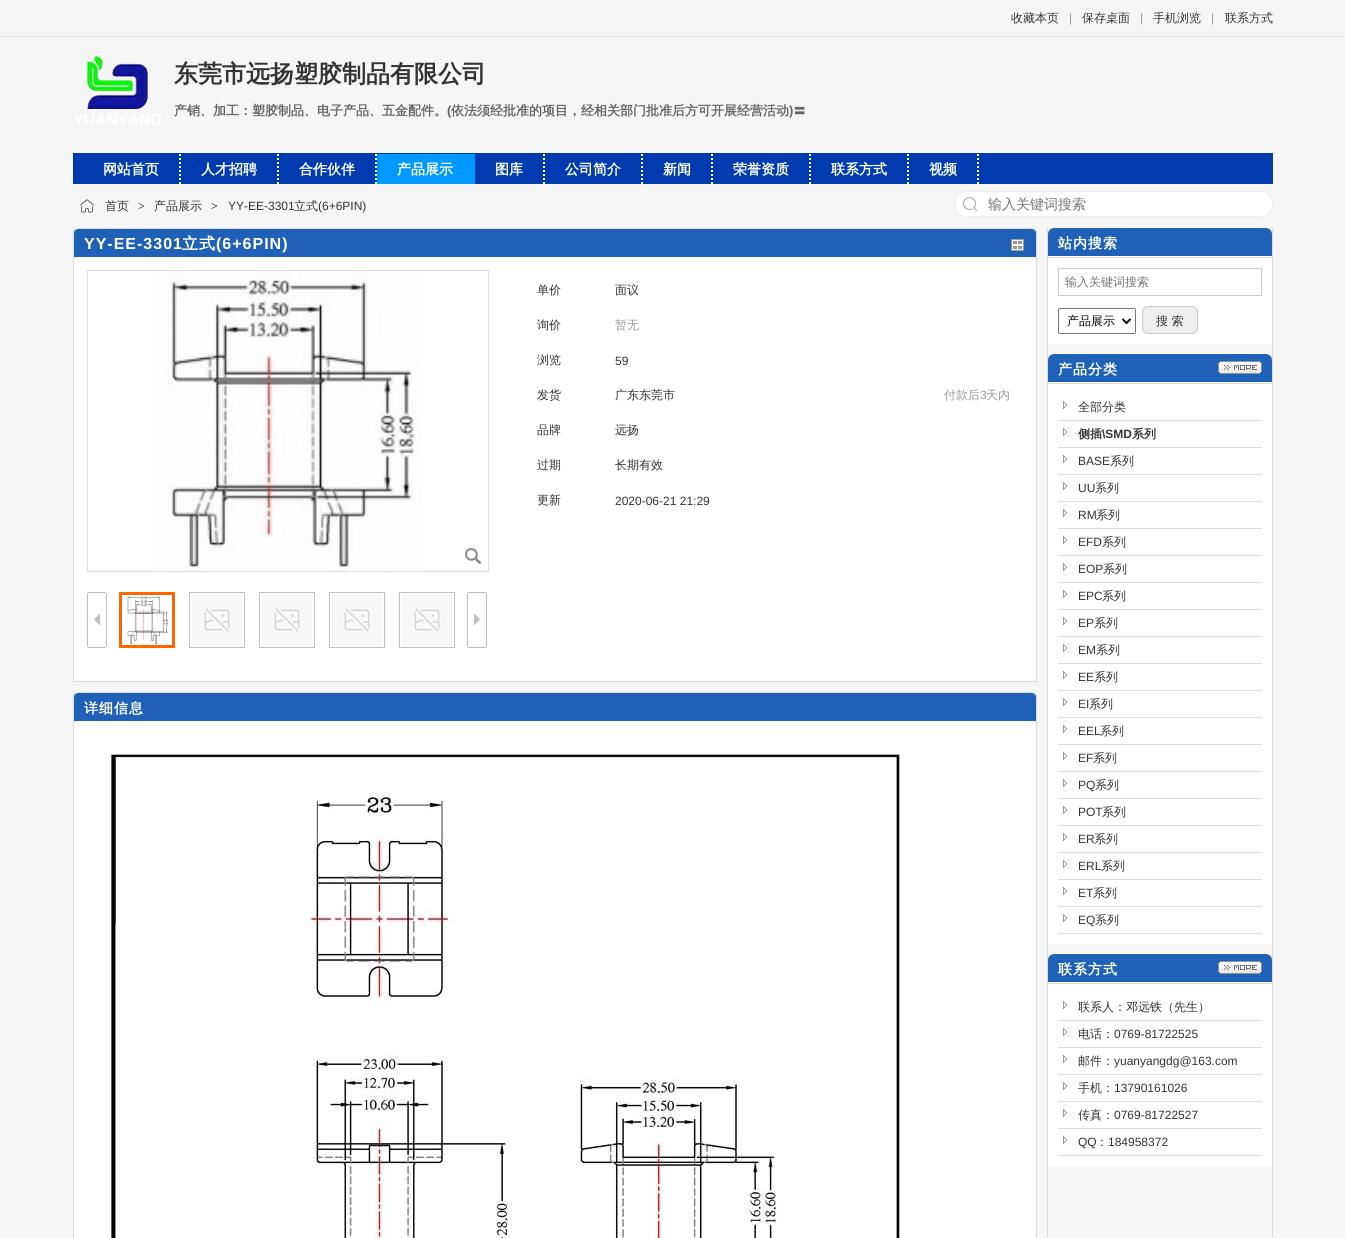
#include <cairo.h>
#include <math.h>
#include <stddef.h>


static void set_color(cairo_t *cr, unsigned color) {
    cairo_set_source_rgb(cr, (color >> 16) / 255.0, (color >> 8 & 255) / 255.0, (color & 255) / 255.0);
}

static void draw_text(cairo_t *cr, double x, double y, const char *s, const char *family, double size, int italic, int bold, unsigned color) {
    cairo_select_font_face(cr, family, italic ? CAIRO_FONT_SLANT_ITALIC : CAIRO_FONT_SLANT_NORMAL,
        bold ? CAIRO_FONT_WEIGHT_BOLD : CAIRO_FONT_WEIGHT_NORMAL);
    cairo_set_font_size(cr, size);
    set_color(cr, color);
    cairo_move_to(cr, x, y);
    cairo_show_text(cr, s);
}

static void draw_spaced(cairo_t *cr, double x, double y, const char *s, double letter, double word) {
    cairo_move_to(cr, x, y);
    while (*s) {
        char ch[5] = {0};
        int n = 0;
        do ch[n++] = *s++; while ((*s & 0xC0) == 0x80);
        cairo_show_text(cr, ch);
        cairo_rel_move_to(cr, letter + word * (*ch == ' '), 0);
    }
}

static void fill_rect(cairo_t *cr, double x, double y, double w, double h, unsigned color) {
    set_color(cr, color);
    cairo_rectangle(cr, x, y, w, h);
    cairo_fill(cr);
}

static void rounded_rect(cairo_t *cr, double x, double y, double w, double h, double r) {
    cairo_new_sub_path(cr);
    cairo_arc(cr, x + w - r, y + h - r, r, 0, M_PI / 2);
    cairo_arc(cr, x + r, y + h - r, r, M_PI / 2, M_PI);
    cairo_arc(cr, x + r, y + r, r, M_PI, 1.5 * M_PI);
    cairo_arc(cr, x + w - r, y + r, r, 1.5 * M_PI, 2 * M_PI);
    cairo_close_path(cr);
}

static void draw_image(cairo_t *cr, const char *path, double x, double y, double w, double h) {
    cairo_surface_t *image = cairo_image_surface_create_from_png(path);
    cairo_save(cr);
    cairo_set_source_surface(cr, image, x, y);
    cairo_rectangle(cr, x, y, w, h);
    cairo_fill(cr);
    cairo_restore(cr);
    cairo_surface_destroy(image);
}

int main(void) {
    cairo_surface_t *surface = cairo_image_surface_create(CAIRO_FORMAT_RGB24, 1345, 1238);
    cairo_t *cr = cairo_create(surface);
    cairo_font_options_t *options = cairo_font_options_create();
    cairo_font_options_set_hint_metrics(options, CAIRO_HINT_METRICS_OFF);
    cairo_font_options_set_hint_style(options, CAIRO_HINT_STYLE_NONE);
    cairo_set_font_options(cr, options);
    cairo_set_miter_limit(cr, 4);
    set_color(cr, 0xF6F6F6);
    cairo_paint(cr);
    fill_rect(cr, 0, 36, 1345, 1, 0xE5E5E5);
    draw_text(cr, 1011, 22, "收藏本页", "WenQuanYi Zen Hei Medium", 12, 0, 0, 0x333333);
    draw_text(cr, 1069, 22, "|", "Liberation Sans", 12, 0, 0, 0x999999);
    draw_text(cr, 1082, 22, "保存桌面", "WenQuanYi Zen Hei Medium", 12, 0, 0, 0x333333);
    draw_text(cr, 1140, 22, "|", "Liberation Sans", 12, 0, 0, 0x999999);
    draw_text(cr, 1153, 22, "手机浏览", "WenQuanYi Zen Hei Medium", 12, 0, 0, 0x333333);
    draw_text(cr, 1211, 22, "|", "Liberation Sans", 12, 0, 0, 0x999999);
    draw_text(cr, 1225, 22, "联系方式", "WenQuanYi Zen Hei Medium", 12, 0, 0, 0x333333);
    draw_image(cr, "assets/img1.png", 74, 56, 87, 69);
    draw_text(cr, 174, 82, "东莞市远扬塑胶制品有限公司", "WenQuanYi Zen Hei", 24, 0, 1, 0x333333);
    draw_text(cr, 174, 115, "产销、加工：塑胶制品、电子产品、五金配件。", "WenQuanYi Zen Hei", 13, 0, 1, 0x666666);
    draw_text(cr, 447, 115, "(", "Liberation Sans", 13, 0, 1, 0x666666);
    draw_text(cr, 451, 115, "依法须经批准的项目，经相关部门批准后方可开展经营活动", "WenQuanYi Zen Hei", 13, 0, 1, 0x666666);
    draw_text(cr, 789, 115, ")", "Liberation Sans", 13, 0, 1, 0x666666);
    draw_text(cr, 793, 115, "〓", "WenQuanYi Zen Hei", 13, 0, 1, 0x666666);
    fill_rect(cr, 73, 153, 1200, 31, 0x003CB0);
    cairo_new_path(cr);
    cairo_move_to(cr, 180, 154);
    cairo_line_to(cr, 180, 184);
    set_color(cr, 0xFFFFFF);
    cairo_set_dash(cr, (double[]){2, 2}, 2, 0);
    cairo_stroke(cr);
    draw_text(cr, 103, 174, "网站首页", "WenQuanYi Zen Hei", 14, 0, 1, 0xFFFFFF);
    cairo_new_path(cr);
    cairo_move_to(cr, 278, 154);
    cairo_line_to(cr, 278, 184);
    cairo_stroke(cr);
    draw_text(cr, 201, 174, "人才招聘", "WenQuanYi Zen Hei", 14, 0, 1, 0xFFFFFF);
    cairo_new_path(cr);
    cairo_move_to(cr, 376, 154);
    cairo_line_to(cr, 376, 184);
    cairo_stroke(cr);
    draw_text(cr, 299, 174, "合作伙伴", "WenQuanYi Zen Hei", 14, 0, 1, 0xFFFFFF);
    fill_rect(cr, 377, 154, 98, 30, 0x0099FF);
    draw_text(cr, 397, 174, "产品展示", "WenQuanYi Zen Hei", 14, 0, 1, 0xFFFFFF);
    cairo_new_path(cr);
    cairo_move_to(cr, 544, 154);
    cairo_line_to(cr, 544, 184);
    cairo_stroke(cr);
    draw_text(cr, 495, 174, "图库", "WenQuanYi Zen Hei", 14, 0, 1, 0xFFFFFF);
    cairo_new_path(cr);
    cairo_move_to(cr, 642, 154);
    cairo_line_to(cr, 642, 184);
    cairo_stroke(cr);
    draw_text(cr, 565, 174, "公司简介", "WenQuanYi Zen Hei", 14, 0, 1, 0xFFFFFF);
    cairo_new_path(cr);
    cairo_move_to(cr, 712, 154);
    cairo_line_to(cr, 712, 184);
    cairo_stroke(cr);
    draw_text(cr, 663, 174, "新闻", "WenQuanYi Zen Hei", 14, 0, 1, 0xFFFFFF);
    cairo_new_path(cr);
    cairo_move_to(cr, 810, 154);
    cairo_line_to(cr, 810, 184);
    cairo_stroke(cr);
    draw_text(cr, 733, 174, "荣誉资质", "WenQuanYi Zen Hei", 14, 0, 1, 0xFFFFFF);
    cairo_new_path(cr);
    cairo_move_to(cr, 908, 154);
    cairo_line_to(cr, 908, 184);
    cairo_stroke(cr);
    draw_text(cr, 831, 174, "联系方式", "WenQuanYi Zen Hei", 14, 0, 1, 0xFFFFFF);
    cairo_new_path(cr);
    cairo_move_to(cr, 978, 154);
    cairo_line_to(cr, 978, 184);
    cairo_stroke(cr);
    draw_text(cr, 929, 174, "视频", "WenQuanYi Zen Hei", 14, 0, 1, 0xFFFFFF);
    draw_image(cr, "assets/img2.png", 80, 199, 14, 14);
    draw_text(cr, 105, 210, "首页", "WenQuanYi Zen Hei Medium", 12, 0, 0, 0x333333);
    draw_text(cr, 138, 210, ">", "Liberation Serif", 12, 0, 1, 0x444444);
    draw_text(cr, 154, 210, "产品展示", "WenQuanYi Zen Hei Medium", 12, 0, 0, 0x333333);
    draw_text(cr, 211, 210, ">", "Liberation Serif", 12, 0, 1, 0x444444);
    draw_text(cr, 228, 210, "YY-EE-3301", "Liberation Sans", 12, 0, 0, 0x333333);
    draw_text(cr, 294, 210, "立式", "WenQuanYi Zen Hei Medium", 12, 0, 0, 0x333333);
    draw_text(cr, 318, 210, "(6+6PIN)", "Liberation Sans", 12, 0, 0, 0x333333);
    set_color(cr, 0xFFFFFF);
    rounded_rect(cr, 955, 191, 318, 26, 12);
    cairo_fill(cr);
    draw_image(cr, "assets/img3.png", 963, 197, 14, 14);
    rounded_rect(cr, 955.5, 191.5, 317, 25, 11.5);
    set_color(cr, 0xEEEEEE);
    cairo_set_line_width(cr, 1);
    cairo_set_dash(cr, NULL, 0, 0);
    cairo_stroke(cr);
    cairo_save(cr);
    cairo_rectangle(cr, 988, 196, 262, 18);
    cairo_clip(cr);
    draw_text(cr, 988, 209, "输入关键词搜索", "WenQuanYi Zen Hei Medium", 14, 0, 0, 0x757575);
    cairo_restore(cr);
    draw_image(cr, "assets/img4.png", 73, 229, 964, 28);
    set_color(cr, 0xDDDDDD);
    cairo_set_fill_rule(cr, CAIRO_FILL_RULE_EVEN_ODD);
    cairo_new_path(cr);
    cairo_move_to(cr, 79, 228);
    cairo_line_to(cr, 1031, 228);
    cairo_curve_to(cr, 1034, 228, 1037, 231, 1037, 234);
    cairo_line_to(cr, 1037, 257);
    cairo_line_to(cr, 73, 257);
    cairo_line_to(cr, 73, 234);
    cairo_curve_to(cr, 73, 231, 76, 228, 79, 228);
    cairo_close_path(cr);
    cairo_move_to(cr, 79, 229);
    cairo_line_to(cr, 1031, 229);
    cairo_curve_to(cr, 1034, 229, 1036, 231, 1036, 234);
    cairo_line_to(cr, 1036, 257);
    cairo_line_to(cr, 74, 257);
    cairo_line_to(cr, 74, 234);
    cairo_curve_to(cr, 74, 231, 76, 229, 79, 229);
    cairo_close_path(cr);
    cairo_fill(cr);
    cairo_select_font_face(cr, "Liberation Sans", CAIRO_FONT_SLANT_NORMAL, CAIRO_FONT_WEIGHT_BOLD);
    cairo_set_font_size(cr, 16);
    set_color(cr, 0xFFFFFF);
    draw_spaced(cr, 84, 249, "YY-EE-3301", 1, 0);
    cairo_select_font_face(cr, "WenQuanYi Zen Hei", CAIRO_FONT_SLANT_NORMAL, CAIRO_FONT_WEIGHT_BOLD);
    draw_spaced(cr, 182, 249, "立式", 1, 0);
    cairo_select_font_face(cr, "Liberation Sans", CAIRO_FONT_SLANT_NORMAL, CAIRO_FONT_WEIGHT_BOLD);
    draw_spaced(cr, 216, 249, "(6+6PIN)", 1, 0);
    draw_image(cr, "assets/img5.png", 1011, 239, 13, 12);
    fill_rect(cr, 74, 257, 962, 424, 0xFFFFFF);
    fill_rect(cr, 1036, 257, 1, 425, 0xDDDDDD);
    fill_rect(cr, 73, 681, 964, 1, 0xDDDDDD);
    fill_rect(cr, 73, 257, 1, 425, 0xDDDDDD);
    cairo_rectangle(cr, 87.5, 270.5, 401, 301);
    cairo_stroke(cr);
    draw_image(cr, "assets/img6.png", 88, 271, 400, 300);
    draw_image(cr, "assets/img7.png", 465, 548, 16, 16);
    draw_image(cr, "assets/img8.png", 87, 592, 20, 56);
    fill_rect(cr, 119, 592, 56, 56, 0xFF6600);
    draw_image(cr, "assets/img9.png", 122, 595, 50, 50);
    cairo_rectangle(cr, 189.5, 592.5, 55, 55);
    set_color(cr, 0xC0C0C0);
    cairo_stroke(cr);
    draw_image(cr, "assets/img10.png", 192, 595, 50, 50);
    cairo_rectangle(cr, 259.5, 592.5, 55, 55);
    cairo_stroke(cr);
    draw_image(cr, "assets/img10.png", 262, 595, 50, 50);
    cairo_rectangle(cr, 329.5, 592.5, 55, 55);
    cairo_stroke(cr);
    draw_image(cr, "assets/img10.png", 332, 595, 50, 50);
    cairo_rectangle(cr, 399.5, 592.5, 55, 55);
    cairo_stroke(cr);
    draw_image(cr, "assets/img10.png", 402, 595, 50, 50);
    draw_image(cr, "assets/img11.png", 467, 592, 20, 56);
    draw_text(cr, 537, 294, "单价", "WenQuanYi Zen Hei Medium", 12, 0, 0, 0x333333);
    draw_text(cr, 615, 294, "面议", "WenQuanYi Zen Hei Medium", 12, 0, 0, 0x333333);
    draw_text(cr, 537, 329, "询价", "WenQuanYi Zen Hei Medium", 12, 0, 0, 0x333333);
    draw_text(cr, 615, 329, "暂无", "WenQuanYi Zen Hei Medium", 12, 0, 0, 0x999999);
    draw_text(cr, 537, 364, "浏览", "WenQuanYi Zen Hei Medium", 12, 0, 0, 0x333333);
    draw_text(cr, 615, 365, "59", "Liberation Sans", 12, 0, 0, 0x333333);
    draw_text(cr, 537, 399, "发货", "WenQuanYi Zen Hei Medium", 12, 0, 0, 0x333333);
    draw_text(cr, 615, 399, "广东东莞市", "WenQuanYi Zen Hei Medium", 12, 0, 0, 0x333333);
    draw_text(cr, 944, 399, "付款后", "WenQuanYi Zen Hei Medium", 12, 0, 0, 0x999999);
    draw_text(cr, 980, 399, "3", "Liberation Sans", 12, 0, 0, 0x999999);
    draw_text(cr, 986, 399, "天内", "WenQuanYi Zen Hei Medium", 12, 0, 0, 0x999999);
    draw_text(cr, 537, 434, "品牌", "WenQuanYi Zen Hei Medium", 12, 0, 0, 0x333333);
    draw_text(cr, 615, 434, "远扬", "WenQuanYi Zen Hei Medium", 12, 0, 0, 0x333333);
    draw_text(cr, 537, 469, "过期", "WenQuanYi Zen Hei Medium", 12, 0, 0, 0x333333);
    draw_text(cr, 615, 469, "长期有效", "WenQuanYi Zen Hei Medium", 12, 0, 0, 0x333333);
    draw_text(cr, 537, 504, "更新", "WenQuanYi Zen Hei Medium", 12, 0, 0, 0x333333);
    draw_text(cr, 615, 505, "2020-06-21 21:29", "Liberation Sans", 12, 0, 0, 0x333333);
    draw_image(cr, "assets/img4.png", 73, 693, 964, 28);
    set_color(cr, 0xDDDDDD);
    cairo_new_path(cr);
    cairo_move_to(cr, 79, 692);
    cairo_line_to(cr, 1031, 692);
    cairo_curve_to(cr, 1034, 692, 1037, 695, 1037, 698);
    cairo_line_to(cr, 1037, 721);
    cairo_line_to(cr, 73, 721);
    cairo_line_to(cr, 73, 698);
    cairo_curve_to(cr, 73, 695, 76, 692, 79, 692);
    cairo_close_path(cr);
    cairo_move_to(cr, 79, 693);
    cairo_line_to(cr, 1031, 693);
    cairo_curve_to(cr, 1034, 693, 1036, 695, 1036, 698);
    cairo_line_to(cr, 1036, 721);
    cairo_line_to(cr, 74, 721);
    cairo_line_to(cr, 74, 698);
    cairo_curve_to(cr, 74, 695, 76, 693, 79, 693);
    cairo_close_path(cr);
    cairo_fill(cr);
    cairo_select_font_face(cr, "WenQuanYi Zen Hei", CAIRO_FONT_SLANT_NORMAL, CAIRO_FONT_WEIGHT_BOLD);
    cairo_set_font_size(cr, 14);
    set_color(cr, 0xFFFFFF);
    draw_spaced(cr, 84, 713, "详细信息", 1, 0);
    fill_rect(cr, 74, 721, 962, 517, 0xFFFFFF);
    fill_rect(cr, 1036, 721, 1, 517, 0xDDDDDD);
    fill_rect(cr, 73, 721, 1, 517, 0xDDDDDD);
    draw_image(cr, "assets/img12.png", 104, 751, 800, 487);
    fill_rect(cr, 1272, 228, 1, 1010, 0xDDDDDD);
    fill_rect(cr, 1047, 228, 1, 1010, 0xDDDDDD);
    draw_image(cr, "assets/img13.png", 1048, 228, 224, 30);
    set_color(cr, 0xFFFFFF);
    draw_spaced(cr, 1058, 248, "站内搜索", 1, 0);
    fill_rect(cr, 1048, 258, 224, 86, 0xFFFFFF);
    cairo_rectangle(cr, 1058.5, 268.5, 203, 27);
    set_color(cr, 0xCCCCCC);
    cairo_stroke(cr);
    draw_text(cr, 1065, 286, "输入关键词搜索", "WenQuanYi Zen Hei Medium", 12, 0, 0, 0x757575);
    rounded_rect(cr, 1058.5, 308.5, 77, 25, 1.5);
    set_color(cr, 0x767676);
    cairo_stroke(cr);
    cairo_new_path(cr);
    cairo_move_to(cr, 1122.5, 319);
    cairo_line_to(cr, 1126.5, 323);
    cairo_line_to(cr, 1130.5, 319);
    set_color(cr, 0x000000);
    cairo_set_line_width(cr, 2);
    cairo_stroke(cr);
    draw_text(cr, 1067, 325, "产品展示", "WenQuanYi Zen Hei Medium", 12, 0, 0, 0x000000);
    set_color(cr, 0xEEEEEE);
    rounded_rect(cr, 1142.5, 306.5, 55, 27, 5.5);
    cairo_fill_preserve(cr);
    set_color(cr, 0xCCCCCC);
    cairo_set_line_width(cr, 1);
    cairo_stroke(cr);
    draw_text(cr, 1156, 325, "搜 索", "WenQuanYi Zen Hei Medium", 12, 0, 0, 0x333333);
    draw_image(cr, "assets/img13.png", 1048, 354, 224, 30);
    cairo_select_font_face(cr, "WenQuanYi Zen Hei", CAIRO_FONT_SLANT_NORMAL, CAIRO_FONT_WEIGHT_BOLD);
    cairo_set_font_size(cr, 14);
    set_color(cr, 0xFFFFFF);
    draw_spaced(cr, 1058, 374, "产品分类", 1, 0);
    draw_image(cr, "assets/img14.png", 1218, 361, 44, 13);
    fill_rect(cr, 1048, 384, 224, 560, 0xFFFFFF);
    draw_image(cr, "assets/img15.png", 1063, 401, 4, 8);
    fill_rect(cr, 1058, 420, 204, 1, 0xDDDDDD);
    draw_text(cr, 1078, 411, "全部分类", "WenQuanYi Zen Hei Medium", 12, 0, 0, 0x333333);
    draw_image(cr, "assets/img15.png", 1063, 428, 4, 8);
    fill_rect(cr, 1058, 447, 204, 1, 0xDDDDDD);
    draw_text(cr, 1078, 438, "侧插", "WenQuanYi Zen Hei", 12, 0, 1, 0x333333);
    draw_text(cr, 1102, 438, "\\SMD", "Liberation Sans", 12, 0, 1, 0x333333);
    draw_text(cr, 1132, 438, "系列", "WenQuanYi Zen Hei", 12, 0, 1, 0x333333);
    draw_image(cr, "assets/img15.png", 1063, 455, 4, 8);
    fill_rect(cr, 1058, 474, 204, 1, 0xDDDDDD);
    draw_text(cr, 1078, 465, "BASE", "Liberation Sans", 12, 0, 0, 0x333333);
    draw_text(cr, 1110, 465, "系列", "WenQuanYi Zen Hei Medium", 12, 0, 0, 0x333333);
    draw_image(cr, "assets/img15.png", 1063, 482, 4, 8);
    fill_rect(cr, 1058, 501, 204, 1, 0xDDDDDD);
    draw_text(cr, 1078, 492, "UU", "Liberation Sans", 12, 0, 0, 0x333333);
    draw_text(cr, 1095, 492, "系列", "WenQuanYi Zen Hei Medium", 12, 0, 0, 0x333333);
    draw_image(cr, "assets/img15.png", 1063, 509, 4, 8);
    fill_rect(cr, 1058, 528, 204, 1, 0xDDDDDD);
    draw_text(cr, 1078, 519, "RM", "Liberation Sans", 12, 0, 0, 0x333333);
    draw_text(cr, 1096, 519, "系列", "WenQuanYi Zen Hei Medium", 12, 0, 0, 0x333333);
    draw_image(cr, "assets/img15.png", 1063, 536, 4, 8);
    fill_rect(cr, 1058, 555, 204, 1, 0xDDDDDD);
    draw_text(cr, 1078, 546, "EFD", "Liberation Sans", 12, 0, 0, 0x333333);
    draw_text(cr, 1102, 546, "系列", "WenQuanYi Zen Hei Medium", 12, 0, 0, 0x333333);
    draw_image(cr, "assets/img15.png", 1063, 563, 4, 8);
    fill_rect(cr, 1058, 582, 204, 1, 0xDDDDDD);
    draw_text(cr, 1078, 573, "EOP", "Liberation Sans", 12, 0, 0, 0x333333);
    draw_text(cr, 1103, 573, "系列", "WenQuanYi Zen Hei Medium", 12, 0, 0, 0x333333);
    draw_image(cr, "assets/img15.png", 1063, 590, 4, 8);
    fill_rect(cr, 1058, 609, 204, 1, 0xDDDDDD);
    draw_text(cr, 1078, 600, "EPC", "Liberation Sans", 12, 0, 0, 0x333333);
    draw_text(cr, 1102, 600, "系列", "WenQuanYi Zen Hei Medium", 12, 0, 0, 0x333333);
    draw_image(cr, "assets/img15.png", 1063, 617, 4, 8);
    fill_rect(cr, 1058, 636, 204, 1, 0xDDDDDD);
    draw_text(cr, 1078, 627, "EP", "Liberation Sans", 12, 0, 0, 0x333333);
    draw_text(cr, 1094, 627, "系列", "WenQuanYi Zen Hei Medium", 12, 0, 0, 0x333333);
    draw_image(cr, "assets/img15.png", 1063, 644, 4, 8);
    fill_rect(cr, 1058, 663, 204, 1, 0xDDDDDD);
    draw_text(cr, 1078, 654, "EM", "Liberation Sans", 12, 0, 0, 0x333333);
    draw_text(cr, 1096, 654, "系列", "WenQuanYi Zen Hei Medium", 12, 0, 0, 0x333333);
    draw_image(cr, "assets/img15.png", 1063, 671, 4, 8);
    fill_rect(cr, 1058, 690, 204, 1, 0xDDDDDD);
    draw_text(cr, 1078, 681, "EE", "Liberation Sans", 12, 0, 0, 0x333333);
    draw_text(cr, 1094, 681, "系列", "WenQuanYi Zen Hei Medium", 12, 0, 0, 0x333333);
    draw_image(cr, "assets/img15.png", 1063, 698, 4, 8);
    fill_rect(cr, 1058, 717, 204, 1, 0xDDDDDD);
    draw_text(cr, 1078, 708, "EI", "Liberation Sans", 12, 0, 0, 0x333333);
    draw_text(cr, 1089, 708, "系列", "WenQuanYi Zen Hei Medium", 12, 0, 0, 0x333333);
    draw_image(cr, "assets/img15.png", 1063, 725, 4, 8);
    fill_rect(cr, 1058, 744, 204, 1, 0xDDDDDD);
    draw_text(cr, 1078, 735, "EEL", "Liberation Sans", 12, 0, 0, 0x333333);
    draw_text(cr, 1100, 735, "系列", "WenQuanYi Zen Hei Medium", 12, 0, 0, 0x333333);
    draw_image(cr, "assets/img15.png", 1063, 752, 4, 8);
    fill_rect(cr, 1058, 771, 204, 1, 0xDDDDDD);
    draw_text(cr, 1078, 762, "EF", "Liberation Sans", 12, 0, 0, 0x333333);
    draw_text(cr, 1093, 762, "系列", "WenQuanYi Zen Hei Medium", 12, 0, 0, 0x333333);
    draw_image(cr, "assets/img15.png", 1063, 779, 4, 8);
    fill_rect(cr, 1058, 798, 204, 1, 0xDDDDDD);
    draw_text(cr, 1078, 789, "PQ", "Liberation Sans", 12, 0, 0, 0x333333);
    draw_text(cr, 1095, 789, "系列", "WenQuanYi Zen Hei Medium", 12, 0, 0, 0x333333);
    draw_image(cr, "assets/img15.png", 1063, 806, 4, 8);
    fill_rect(cr, 1058, 825, 204, 1, 0xDDDDDD);
    draw_text(cr, 1078, 816, "POT", "Liberation Sans", 12, 0, 0, 0x333333);
    draw_text(cr, 1102, 816, "系列", "WenQuanYi Zen Hei Medium", 12, 0, 0, 0x333333);
    draw_image(cr, "assets/img15.png", 1063, 833, 4, 8);
    fill_rect(cr, 1058, 852, 204, 1, 0xDDDDDD);
    draw_text(cr, 1078, 843, "ER", "Liberation Sans", 12, 0, 0, 0x333333);
    draw_text(cr, 1094, 843, "系列", "WenQuanYi Zen Hei Medium", 12, 0, 0, 0x333333);
    draw_image(cr, "assets/img15.png", 1063, 860, 4, 8);
    fill_rect(cr, 1058, 879, 204, 1, 0xDDDDDD);
    draw_text(cr, 1078, 870, "ERL", "Liberation Sans", 12, 0, 0, 0x333333);
    draw_text(cr, 1101, 870, "系列", "WenQuanYi Zen Hei Medium", 12, 0, 0, 0x333333);
    draw_image(cr, "assets/img15.png", 1063, 887, 4, 8);
    fill_rect(cr, 1058, 906, 204, 1, 0xDDDDDD);
    draw_text(cr, 1078, 897, "ET", "Liberation Sans", 12, 0, 0, 0x333333);
    draw_text(cr, 1093, 897, "系列", "WenQuanYi Zen Hei Medium", 12, 0, 0, 0x333333);
    draw_image(cr, "assets/img15.png", 1063, 914, 4, 8);
    fill_rect(cr, 1058, 933, 204, 1, 0xDDDDDD);
    draw_text(cr, 1078, 924, "EQ", "Liberation Sans", 12, 0, 0, 0x333333);
    draw_text(cr, 1095, 924, "系列", "WenQuanYi Zen Hei Medium", 12, 0, 0, 0x333333);
    draw_image(cr, "assets/img13.png", 1048, 954, 224, 30);
    cairo_select_font_face(cr, "WenQuanYi Zen Hei", CAIRO_FONT_SLANT_NORMAL, CAIRO_FONT_WEIGHT_BOLD);
    cairo_set_font_size(cr, 14);
    set_color(cr, 0xFFFFFF);
    draw_spaced(cr, 1058, 974, "联系方式", 1, 0);
    draw_image(cr, "assets/img14.png", 1218, 961, 44, 13);
    fill_rect(cr, 1048, 984, 224, 182, 0xFFFFFF);
    draw_image(cr, "assets/img15.png", 1063, 1001, 4, 8);
    fill_rect(cr, 1058, 1020, 204, 1, 0xDDDDDD);
    draw_text(cr, 1078, 1011, "联系人：邓远铁（先生）", "WenQuanYi Zen Hei Medium", 12, 0, 0, 0x333333);
    draw_image(cr, "assets/img15.png", 1063, 1028, 4, 8);
    fill_rect(cr, 1058, 1047, 204, 1, 0xDDDDDD);
    draw_text(cr, 1078, 1038, "电话：", "WenQuanYi Zen Hei Medium", 12, 0, 0, 0x333333);
    draw_text(cr, 1114, 1038, "0769-81722525", "Liberation Sans", 12, 0, 0, 0x333333);
    draw_image(cr, "assets/img15.png", 1063, 1055, 4, 8);
    fill_rect(cr, 1058, 1074, 204, 1, 0xDDDDDD);
    draw_text(cr, 1078, 1065, "邮件：", "WenQuanYi Zen Hei Medium", 12, 0, 0, 0x333333);
    draw_text(cr, 1114, 1065, "yuanyangdg@163.com", "Liberation Sans", 12, 0, 0, 0x333333);
    draw_image(cr, "assets/img15.png", 1063, 1082, 4, 8);
    fill_rect(cr, 1058, 1101, 204, 1, 0xDDDDDD);
    draw_text(cr, 1078, 1092, "手机：", "WenQuanYi Zen Hei Medium", 12, 0, 0, 0x333333);
    draw_text(cr, 1114, 1092, "13790161026", "Liberation Sans", 12, 0, 0, 0x333333);
    draw_image(cr, "assets/img15.png", 1063, 1109, 4, 8);
    fill_rect(cr, 1058, 1128, 204, 1, 0xDDDDDD);
    draw_text(cr, 1078, 1119, "传真：", "WenQuanYi Zen Hei Medium", 12, 0, 0, 0x333333);
    draw_text(cr, 1114, 1119, "0769-81722527", "Liberation Sans", 12, 0, 0, 0x333333);
    draw_image(cr, "assets/img15.png", 1063, 1136, 4, 8);
    fill_rect(cr, 1058, 1155, 204, 1, 0xDDDDDD);
    draw_text(cr, 1078, 1146, "QQ", "Liberation Sans", 12, 0, 0, 0x333333);
    draw_text(cr, 1096, 1146, "：", "WenQuanYi Zen Hei Medium", 12, 0, 0, 0x333333);
    draw_text(cr, 1108, 1146, "184958372", "Liberation Sans", 12, 0, 0, 0x333333);
    cairo_surface_write_to_png(surface, "output.png");
    cairo_font_options_destroy(options);
    cairo_destroy(cr);
    cairo_surface_destroy(surface);
    return 0;
}
